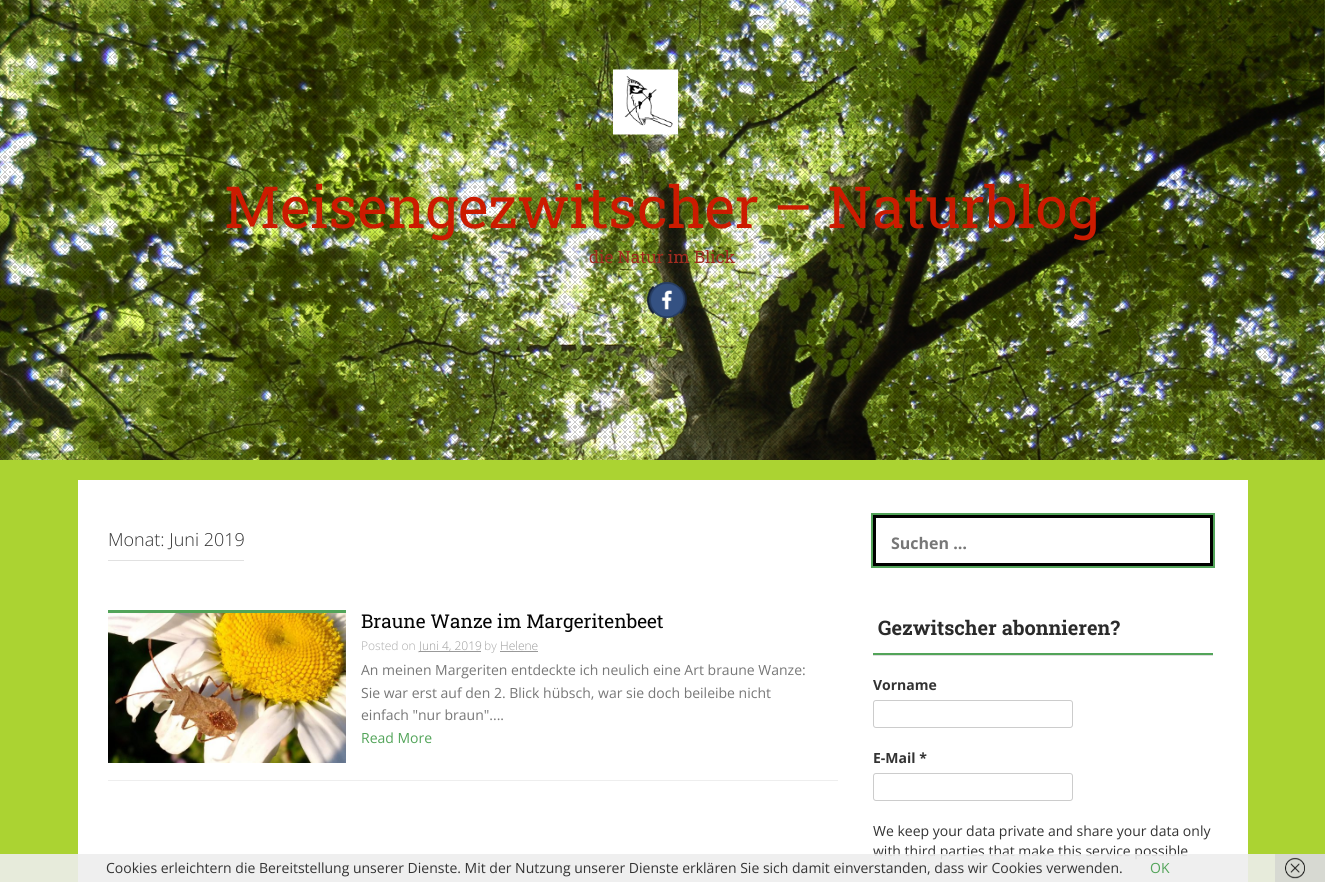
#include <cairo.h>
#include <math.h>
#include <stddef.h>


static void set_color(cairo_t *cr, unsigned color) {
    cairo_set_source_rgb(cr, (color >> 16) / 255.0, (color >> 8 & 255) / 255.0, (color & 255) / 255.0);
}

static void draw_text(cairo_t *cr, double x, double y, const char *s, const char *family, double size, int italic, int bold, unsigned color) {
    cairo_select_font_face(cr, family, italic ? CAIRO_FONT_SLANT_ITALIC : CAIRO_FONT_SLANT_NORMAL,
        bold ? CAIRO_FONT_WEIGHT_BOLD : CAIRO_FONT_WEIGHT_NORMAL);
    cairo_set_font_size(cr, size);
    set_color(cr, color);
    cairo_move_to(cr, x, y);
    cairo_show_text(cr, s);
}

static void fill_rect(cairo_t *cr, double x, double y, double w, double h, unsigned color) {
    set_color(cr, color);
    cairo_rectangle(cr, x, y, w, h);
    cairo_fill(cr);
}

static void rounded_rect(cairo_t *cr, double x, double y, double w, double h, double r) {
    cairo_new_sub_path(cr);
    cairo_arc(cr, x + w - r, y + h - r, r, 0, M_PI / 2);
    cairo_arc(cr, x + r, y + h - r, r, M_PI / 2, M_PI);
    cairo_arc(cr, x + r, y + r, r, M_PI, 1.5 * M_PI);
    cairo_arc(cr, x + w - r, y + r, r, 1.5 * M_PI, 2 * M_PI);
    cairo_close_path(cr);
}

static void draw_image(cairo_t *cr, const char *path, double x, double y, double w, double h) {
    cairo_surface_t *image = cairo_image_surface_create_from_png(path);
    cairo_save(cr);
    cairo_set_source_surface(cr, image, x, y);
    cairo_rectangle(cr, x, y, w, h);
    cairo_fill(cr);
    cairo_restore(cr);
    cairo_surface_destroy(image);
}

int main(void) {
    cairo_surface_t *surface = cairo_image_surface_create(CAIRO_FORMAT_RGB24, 1325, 882);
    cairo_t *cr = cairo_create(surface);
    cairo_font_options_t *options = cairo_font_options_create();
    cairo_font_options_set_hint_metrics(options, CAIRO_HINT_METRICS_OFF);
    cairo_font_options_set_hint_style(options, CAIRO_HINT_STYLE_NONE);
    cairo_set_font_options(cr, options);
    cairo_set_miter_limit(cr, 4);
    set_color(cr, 0xABD332);
    cairo_paint(cr);
    draw_image(cr, "assets/img1.png", 0, 0, 1325, 460);
    draw_image(cr, "assets/img2.png", 0, 0, 1325, 460);
    draw_image(cr, "assets/img3.png", 613, 69, 65, 66);
    draw_text(cr, 224, 228, "Meisengezwitscher – Naturblog", "Roboto Slab", 58, 0, 0, 0xCC1B00);
    draw_text(cr, 589, 263, "die Natur im Blick", "Roboto Slab", 17, 0, 0, 0xA02C20);
    draw_image(cr, "assets/img4.png", 646, 282, 41, 36);
    fill_rect(cr, 78, 480, 1170, 402, 0xFFFFFF);
    fill_rect(cr, 108, 560, 136, 1, 0xE1E1E1);
    draw_text(cr, 108, 546, "Monat: Juni 2019", "Open Sans Light", 18, 0, 0, 0x333333);
    fill_rect(cr, 108, 780, 730, 1, 0xEEEEEE);
    fill_rect(cr, 108, 610, 238, 3, 0x52A459);
    draw_image(cr, "assets/img5.png", 108, 613, 238, 150);
    draw_text(cr, 361, 628, "Braune Wanze im Margeritenbeet", "Roboto Slab", 19, 0, 0, 0x040404);
    draw_text(cr, 361, 650, "Posted on", "Open Sans Light", 12, 0, 0, 0xAAAAAA);
    fill_rect(cr, 419, 651, 62, 1, 0x999999);
    draw_text(cr, 419, 650, "Juni 4, 2019", "Open Sans Light", 12, 0, 0, 0x999999);
    draw_text(cr, 484, 650, "by", "Open Sans Light", 12, 0, 0, 0xAAAAAA);
    draw_text(cr, 500, 650, "Helene", "Open Sans Light", 12, 0, 0, 0x999999);
    fill_rect(cr, 500, 651, 38, 1, 0x999999);
    draw_text(cr, 361, 675, "An meinen Margeriten entdeckte ich neulich eine Art braune Wanze:", "Open Sans", 14, 0, 0, 0x777777);
    draw_text(cr, 361, 698, "Sie war erst auf den 2. Blick hübsch, war sie doch beileibe nicht", "Open Sans", 14, 0, 0, 0x777777);
    draw_text(cr, 361, 720, "einfach \"nur braun\"....", "Open Sans", 14, 0, 0, 0x777777);
    draw_text(cr, 361, 743, "Read More", "Open Sans", 14, 0, 0, 0x52A459);
    cairo_rectangle(cr, 874.5, 516.5, 337, 48);
    set_color(cr, 0x000000);
    cairo_set_line_width(cr, 3);
    cairo_stroke(cr);
    cairo_rectangle(cr, 872, 514, 342, 53);
    set_color(cr, 0x52A459);
    cairo_set_line_width(cr, 2);
    cairo_stroke(cr);
    draw_text(cr, 891, 549, "Suchen …", "Open Sans", 16, 0, 1, 0x777777);
    fill_rect(cr, 873, 655, 340, 1, 0xDDDDDD);
    fill_rect(cr, 873, 653, 340, 2, 0x52A459);
    draw_text(cr, 878, 635, "Gezwitscher abonnieren?", "Roboto Slab", 20, 0, 1, 0x2B2B2B);
    draw_text(cr, 873, 690, "Vorname", "Open Sans", 14, 0, 1, 0x333333);
    rounded_rect(cr, 873.5, 700.5, 199, 27, 2.5);
    set_color(cr, 0xCCCCCC);
    cairo_set_line_width(cr, 1);
    cairo_stroke(cr);
    draw_text(cr, 873, 763, "E-Mail *", "Open Sans", 14, 0, 1, 0x333333);
    rounded_rect(cr, 873.5, 773.5, 199, 27, 2.5);
    set_color(cr, 0xCCCCCC);
    cairo_stroke(cr);
    draw_text(cr, 873, 836, "We keep your data private and share your data only", "Open Sans", 14, 0, 0, 0x333333);
    draw_text(cr, 873, 856, "with third parties that make this service possible", "Open Sans", 14, 0, 0, 0x333333);
    cairo_set_source_rgba(cr, 0.933, 0.933, 0.933, 0.9);
    cairo_rectangle(cr, 0, 854, 1275, 28);
    cairo_fill(cr);
    draw_text(cr, 106, 873, "Cookies erleichtern die Bereitstellung unserer Dienste. Mit der Nutzung unserer Dienste erklären Sie sich damit einverstanden, dass wir Cookies verwenden.", "Open Sans", 14, 0, 0, 0x333333);
    draw_text(cr, 1150, 873, "OK", "Open Sans", 14, 0, 0, 0x52A459);
    fill_rect(cr, 1275, 854, 50, 28, 0xD7D9D2);
    draw_image(cr, "assets/img6.png", 1285, 857, 20, 22);
    cairo_surface_write_to_png(surface, "output.png");
    cairo_font_options_destroy(options);
    cairo_destroy(cr);
    cairo_surface_destroy(surface);
    return 0;
}
